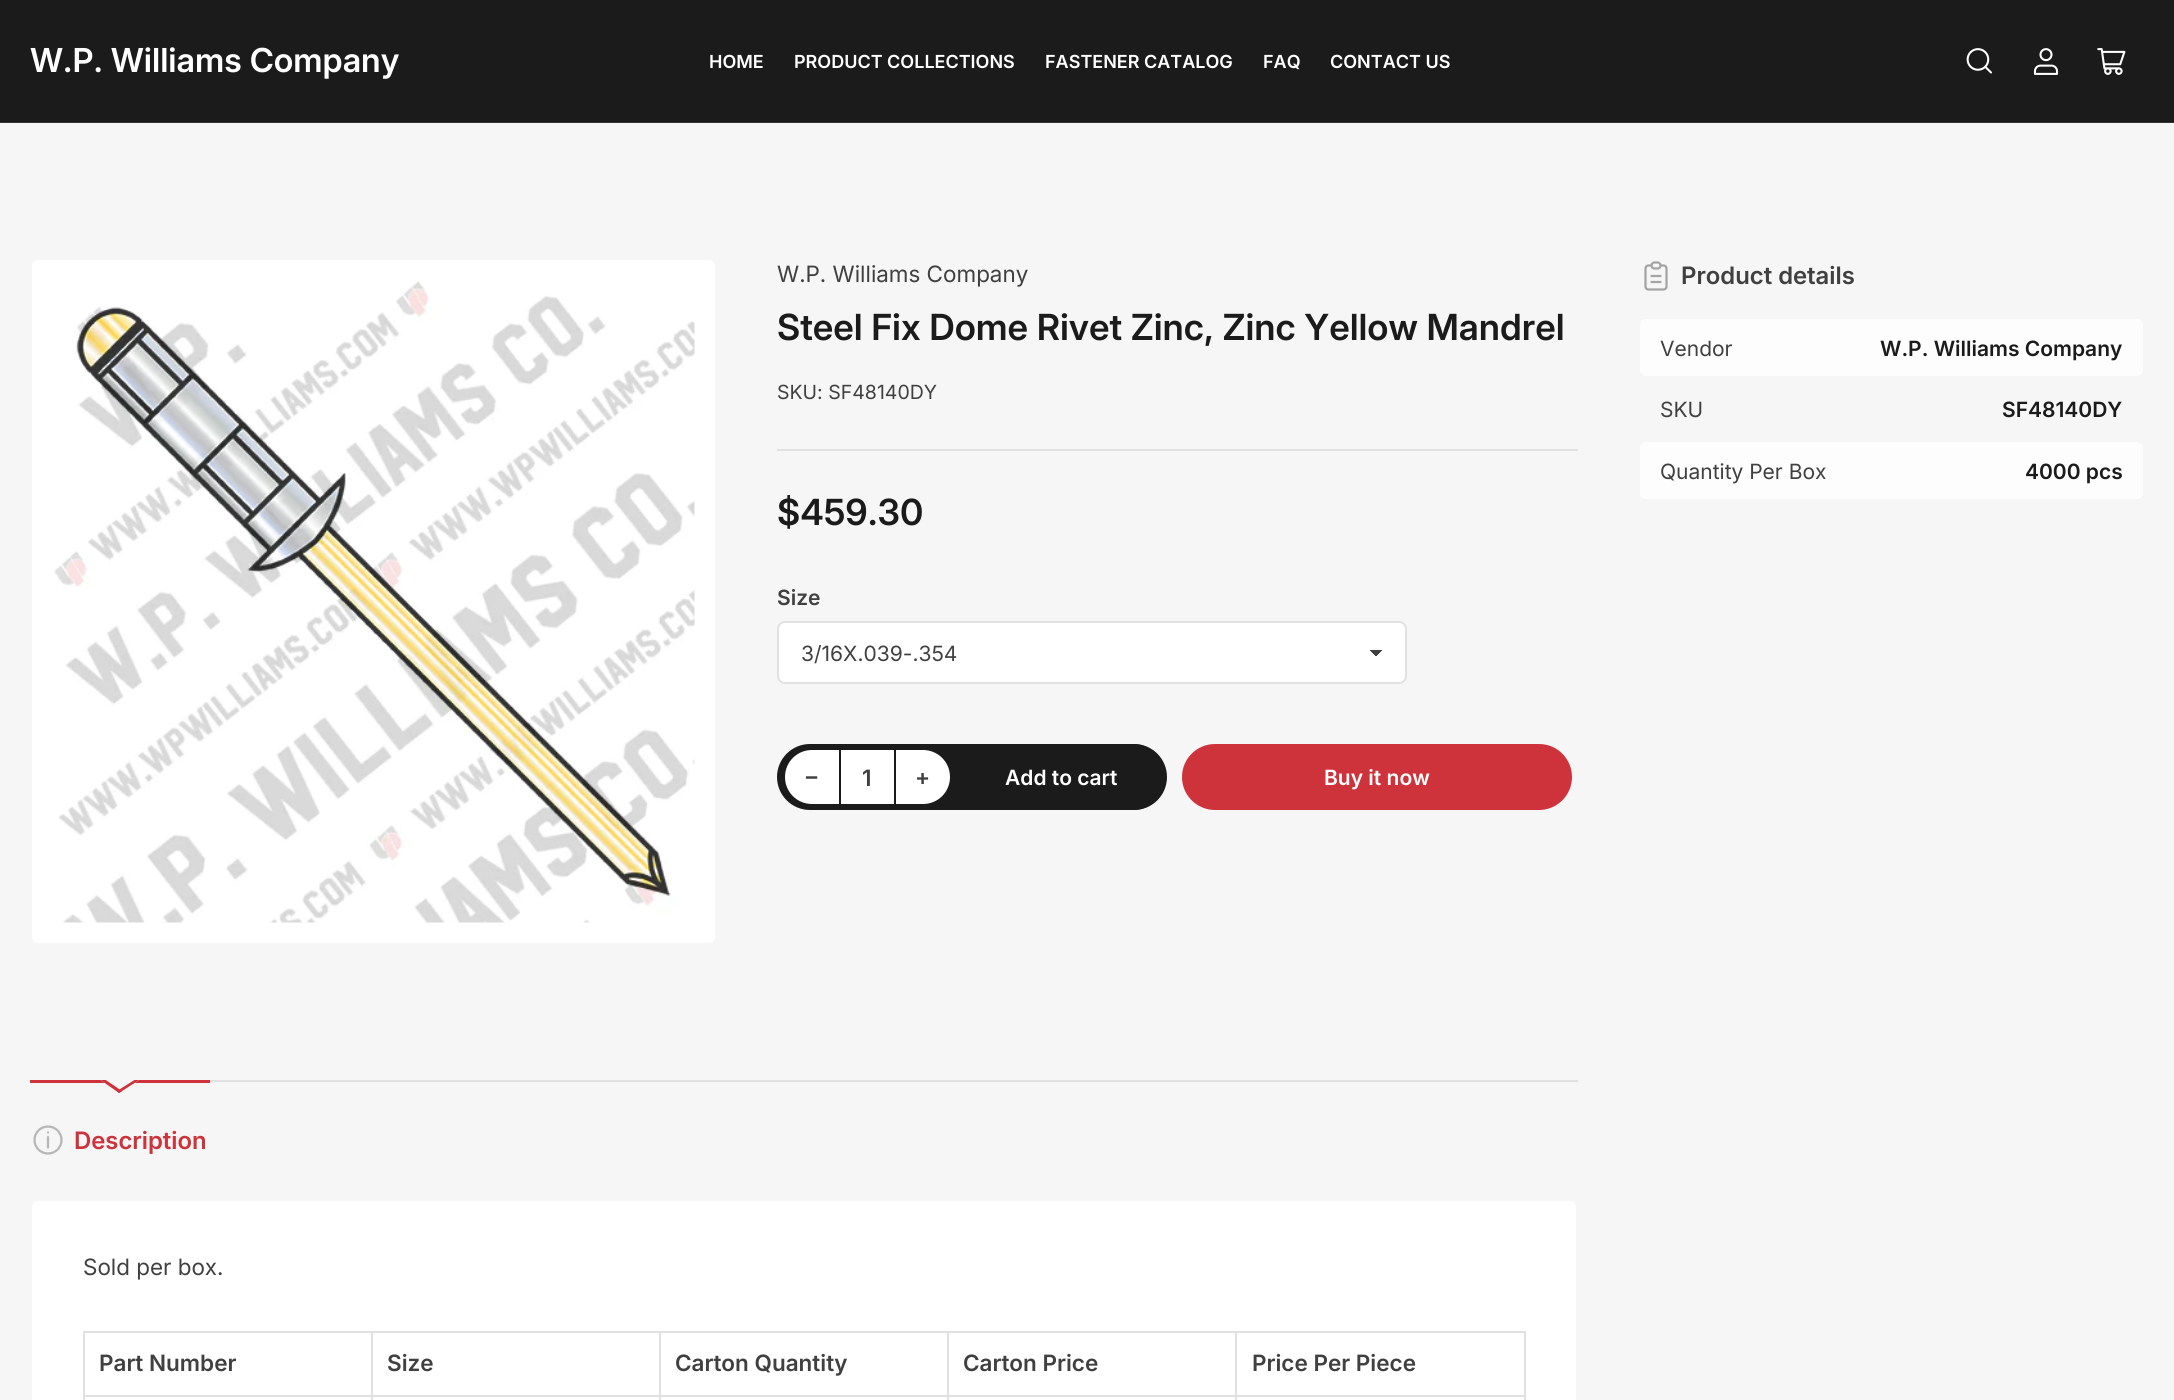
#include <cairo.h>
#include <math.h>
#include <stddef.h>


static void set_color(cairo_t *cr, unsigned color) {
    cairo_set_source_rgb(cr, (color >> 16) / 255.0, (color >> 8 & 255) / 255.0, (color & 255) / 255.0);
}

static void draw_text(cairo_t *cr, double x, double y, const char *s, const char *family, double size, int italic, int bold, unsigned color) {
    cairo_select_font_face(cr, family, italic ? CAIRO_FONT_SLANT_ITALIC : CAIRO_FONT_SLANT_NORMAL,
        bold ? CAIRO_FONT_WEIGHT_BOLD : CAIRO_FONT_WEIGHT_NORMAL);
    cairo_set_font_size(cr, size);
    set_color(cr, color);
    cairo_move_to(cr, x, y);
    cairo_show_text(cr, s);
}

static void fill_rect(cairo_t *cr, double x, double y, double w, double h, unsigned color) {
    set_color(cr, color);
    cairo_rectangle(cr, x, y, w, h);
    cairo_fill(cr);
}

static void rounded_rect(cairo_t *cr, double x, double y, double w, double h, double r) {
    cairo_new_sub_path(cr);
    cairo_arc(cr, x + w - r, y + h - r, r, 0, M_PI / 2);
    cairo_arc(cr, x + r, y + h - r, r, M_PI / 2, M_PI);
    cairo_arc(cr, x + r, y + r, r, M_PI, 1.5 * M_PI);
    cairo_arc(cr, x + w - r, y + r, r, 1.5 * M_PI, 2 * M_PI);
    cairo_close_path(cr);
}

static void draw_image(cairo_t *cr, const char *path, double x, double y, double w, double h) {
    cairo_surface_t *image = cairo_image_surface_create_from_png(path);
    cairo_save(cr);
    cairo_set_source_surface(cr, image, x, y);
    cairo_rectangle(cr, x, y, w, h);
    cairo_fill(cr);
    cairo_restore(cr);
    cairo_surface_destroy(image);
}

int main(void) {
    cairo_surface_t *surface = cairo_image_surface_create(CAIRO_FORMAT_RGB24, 2174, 1400);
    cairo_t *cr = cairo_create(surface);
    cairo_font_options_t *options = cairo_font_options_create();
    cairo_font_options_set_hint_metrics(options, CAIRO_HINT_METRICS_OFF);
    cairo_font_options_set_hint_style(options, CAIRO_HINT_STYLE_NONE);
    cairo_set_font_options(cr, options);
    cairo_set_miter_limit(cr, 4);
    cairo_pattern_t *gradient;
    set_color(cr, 0xF6F6F6);
    cairo_paint(cr);
    fill_rect(cr, 0, 0, 2174, 122, 0x1B1B1B);
    fill_rect(cr, 0, 122, 2174, 1, 0x323232);
    draw_text(cr, 30, 72, "W.P. Williams Company", "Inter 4 SemiBold", 33, 0, 0, 0xFFFFFF);
    draw_text(cr, 709, 68, "HOME", "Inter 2 SemiBold", 18, 0, 0, 0xFFFFFF);
    draw_text(cr, 794, 68, "PRODUCT COLLECTIONS", "Inter 2 SemiBold", 18, 0, 0, 0xFFFFFF);
    draw_text(cr, 1045, 68, "FASTENER CATALOG", "Inter 2 SemiBold", 18, 0, 0, 0xFFFFFF);
    draw_text(cr, 1263, 68, "FAQ", "Inter 2 SemiBold", 18, 0, 0, 0xFFFFFF);
    draw_text(cr, 1330, 68, "CONTACT US", "Inter 2 SemiBold", 18, 0, 0, 0xFFFFFF);
    draw_image(cr, "assets/img1.png", 1966, 48, 26, 26);
    draw_image(cr, "assets/img2.png", 2033, 48, 26, 27);
    draw_image(cr, "assets/img3.png", 2097, 48, 29, 27);
    rounded_rect(cr, 31, 259, 685, 685, 7);
    cairo_fill_preserve(cr);
    set_color(cr, 0xF6F6F6);
    cairo_stroke(cr);
    draw_image(cr, "assets/img4.png", 54, 281, 641, 642);
    fill_rect(cr, 777, 449, 801, 2, 0xE1E1E1);
    draw_text(cr, 777, 282, "W.P. Williams Company", "Inter", 22.5, 0, 0, 0x404040);
    draw_text(cr, 777, 340, "Steel Fix Dome Rivet Zinc, Zinc Yellow Mandrel", "Inter SemiBold", 36, 0, 0, 0x1B1B1B);
    draw_text(cr, 777, 399, "SKU: SF48140DY", "Inter 2", 19.5, 0, 0, 0x404040);
    draw_text(cr, 777, 525, "$459.30", "Inter SemiBold", 36, 0, 0, 0x1B1B1B);
    draw_text(cr, 777, 605, "Size", "Inter 2 SemiBold", 21, 0, 0, 0x404040);
    set_color(cr, 0xFFFFFF);
    rounded_rect(cr, 779, 623, 627, 60, 6);
    cairo_fill(cr);
    gradient = cairo_pattern_create_linear(1376, 649, 1383, 656);
    cairo_pattern_add_color_stop_rgba(gradient, 0.5, 0.251, 0.251, 0.251, 1);
    cairo_pattern_add_color_stop_rgba(gradient, 0.5, 1, 1, 1, 1);
    cairo_set_source(cr, gradient);
    cairo_pattern_destroy(gradient);
    cairo_rectangle(cr, 1376, 650, 7, 6);
    cairo_fill(cr);
    gradient = cairo_pattern_create_linear(1368, 656, 1376, 649);
    cairo_pattern_add_color_stop_rgba(gradient, 0.5, 1, 1, 1, 1);
    cairo_pattern_add_color_stop_rgba(gradient, 0.5, 0.251, 0.251, 0.251, 1);
    cairo_set_source(cr, gradient);
    cairo_pattern_destroy(gradient);
    cairo_rectangle(cr, 1368, 650, 8, 6);
    cairo_fill(cr);
    rounded_rect(cr, 778, 622, 628, 61, 7);
    set_color(cr, 0xE1E1E1);
    cairo_stroke(cr);
    draw_text(cr, 801, 661, "3/16X.039-.354", "Inter 2", 21, 0, 0, 0x404040);
    set_color(cr, 0x1B1B1B);
    rounded_rect(cr, 778, 745, 388, 64, 32);
    cairo_fill_preserve(cr);
    cairo_stroke(cr);
    set_color(cr, 0xFFFFFF);
    cairo_new_path(cr);
    cairo_move_to(cr, 812, 750);
    cairo_line_to(cr, 839, 750);
    cairo_line_to(cr, 839, 804);
    cairo_line_to(cr, 812, 804);
    cairo_curve_to(cr, 797, 804, 785, 792, 785, 777);
    cairo_curve_to(cr, 785, 762, 797, 750, 812, 750);
    cairo_close_path(cr);
    cairo_fill(cr);
    draw_text(cr, 805, 785, "−", "Liberation Sans", 22.5, 0, 1, 0x404040);
    fill_rect(cr, 841, 750, 53, 54, 0xFFFFFF);
    draw_text(cr, 862, 786, "1", "Inter 2 SemiBold", 22.5, 0, 0, 0x404040);
    set_color(cr, 0xFFFFFF);
    cairo_new_path(cr);
    cairo_move_to(cr, 896, 750);
    cairo_line_to(cr, 923, 750);
    cairo_curve_to(cr, 938, 750, 950, 762, 950, 777);
    cairo_curve_to(cr, 950, 792, 938, 804, 923, 804);
    cairo_line_to(cr, 896, 804);
    cairo_close_path(cr);
    cairo_fill(cr);
    draw_text(cr, 915, 785, "+", "Inter 2 SemiBold", 22.5, 0, 0, 0x404040);
    set_color(cr, 0x1B1B1B);
    rounded_rect(cr, 957, 745, 208, 64, 32);
    cairo_fill_preserve(cr);
    cairo_stroke(cr);
    draw_text(cr, 1005, 785, "Add to cart", "Inter 2 SemiBold", 21, 0, 0, 0xFFFFFF);
    set_color(cr, 0xCE333C);
    rounded_rect(cr, 1182, 744, 390, 66, 33);
    cairo_fill(cr);
    draw_text(cr, 1324, 785, "Buy it now", "Inter 2 SemiBold", 21, 0, 0, 0xFFFFFF);
    draw_image(cr, "assets/img5.png", 1644, 261, 24, 30);
    draw_text(cr, 1681, 284, "Product details", "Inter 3 SemiBold", 24, 0, 0, 0x404040);
    set_color(cr, 0xFDFDFD);
    rounded_rect(cr, 1639, 318, 505, 59, 7);
    cairo_fill_preserve(cr);
    set_color(cr, 0xF6F6F6);
    cairo_stroke(cr);
    draw_text(cr, 1660, 356, "Vendor", "Inter 2", 21, 0, 0, 0x404040);
    draw_text(cr, 1880, 356, "W.P. Williams Company", "Inter 2 SemiBold", 21, 0, 0, 0x1B1B1B);
    draw_text(cr, 1660, 417, "SKU", "Inter 2", 21, 0, 0, 0x404040);
    draw_text(cr, 2002, 417, "SF48140DY", "Inter 2 SemiBold", 21, 0, 0, 0x1B1B1B);
    set_color(cr, 0xFDFDFD);
    rounded_rect(cr, 1639, 441, 505, 59, 7);
    cairo_fill_preserve(cr);
    set_color(cr, 0xF6F6F6);
    cairo_stroke(cr);
    draw_text(cr, 1660, 479, "Quantity Per Box", "Inter 2", 21, 0, 0, 0x404040);
    draw_text(cr, 2025, 479, "4000 pcs", "Inter 2 SemiBold", 21, 0, 0, 0x1B1B1B);
    fill_rect(cr, 210, 1080, 1368, 2, 0xE1E1E1);
    fill_rect(cr, 30, 1080, 180, 3, 0xCE333C);
    cairo_save(cr);
    cairo_rectangle(cr, 30, 1080, 180, 81);
    cairo_clip(cr);
    set_color(cr, 0xF6F6F6);
    cairo_new_path(cr);
    cairo_move_to(cr, 124, 1041);
    cairo_line_to(cr, 161, 1066);
    cairo_line_to(cr, 119, 1093);
    cairo_line_to(cr, 82, 1067);
    cairo_close_path(cr);
    cairo_fill(cr);
    set_color(cr, 0xCE333C);
    cairo_new_path(cr);
    cairo_move_to(cr, 158, 1065);
    cairo_line_to(cr, 161, 1066);
    cairo_line_to(cr, 119, 1093);
    cairo_line_to(cr, 117, 1091);
    cairo_close_path(cr);
    cairo_fill(cr);
    cairo_new_path(cr);
    cairo_move_to(cr, 85, 1066);
    cairo_line_to(cr, 122, 1091);
    cairo_line_to(cr, 119, 1093);
    cairo_line_to(cr, 82, 1067);
    cairo_close_path(cr);
    cairo_fill(cr);
    cairo_restore(cr);
    draw_image(cr, "assets/img6.png", 33, 1125, 30, 30);
    draw_text(cr, 74, 1149, "Description", "Inter 3 SemiBold", 24, 0, 0, 0xCE333C);
    set_color(cr, 0xFFFFFF);
    rounded_rect(cr, 31, 1200, 1546, 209, 7);
    cairo_fill_preserve(cr);
    set_color(cr, 0xF6F6F6);
    cairo_stroke(cr);
    draw_text(cr, 83, 1275, "Sold per box.", "Inter", 22.5, 0, 0, 0x404040);
    fill_rect(cr, 1235, 1331, 291, 2, 0xE1E1E1);
    fill_rect(cr, 1235, 1395, 291, 2, 0xE1E1E1);
    fill_rect(cr, 1235, 1395, 2, 5, 0xE1E1E1);
    fill_rect(cr, 947, 1395, 289, 2, 0xE1E1E1);
    fill_rect(cr, 1235, 1331, 2, 66, 0xE1E1E1);
    fill_rect(cr, 947, 1331, 289, 2, 0xE1E1E1);
    fill_rect(cr, 947, 1395, 2, 5, 0xE1E1E1);
    fill_rect(cr, 659, 1395, 289, 2, 0xE1E1E1);
    fill_rect(cr, 947, 1331, 2, 66, 0xE1E1E1);
    fill_rect(cr, 659, 1331, 289, 2, 0xE1E1E1);
    fill_rect(cr, 659, 1395, 2, 5, 0xE1E1E1);
    fill_rect(cr, 371, 1395, 289, 2, 0xE1E1E1);
    fill_rect(cr, 659, 1331, 2, 66, 0xE1E1E1);
    fill_rect(cr, 371, 1331, 289, 2, 0xE1E1E1);
    fill_rect(cr, 371, 1395, 2, 5, 0xE1E1E1);
    fill_rect(cr, 83, 1395, 289, 2, 0xE1E1E1);
    fill_rect(cr, 371, 1331, 2, 66, 0xE1E1E1);
    fill_rect(cr, 83, 1331, 289, 2, 0xE1E1E1);
    fill_rect(cr, 83, 1395, 2, 5, 0xE1E1E1);
    fill_rect(cr, 83, 1331, 2, 66, 0xE1E1E1);
    draw_text(cr, 99, 1371, "Part Number", "Inter 2 SemiBold", 22.5, 0, 0, 0x404040);
    draw_text(cr, 387, 1371, "Size", "Inter 2 SemiBold", 22.5, 0, 0, 0x404040);
    draw_text(cr, 675, 1371, "Carton Quantity", "Inter 2 SemiBold", 22.5, 0, 0, 0x404040);
    draw_text(cr, 963, 1371, "Carton Price", "Inter 2 SemiBold", 22.5, 0, 0, 0x404040);
    fill_rect(cr, 1524, 1395, 2, 5, 0xE1E1E1);
    fill_rect(cr, 1524, 1331, 2, 66, 0xE1E1E1);
    draw_text(cr, 1252, 1371, "Price Per Piece", "Inter 2 SemiBold", 22.5, 0, 0, 0x404040);
    cairo_surface_write_to_png(surface, "output.png");
    cairo_font_options_destroy(options);
    cairo_destroy(cr);
    cairo_surface_destroy(surface);
    return 0;
}
